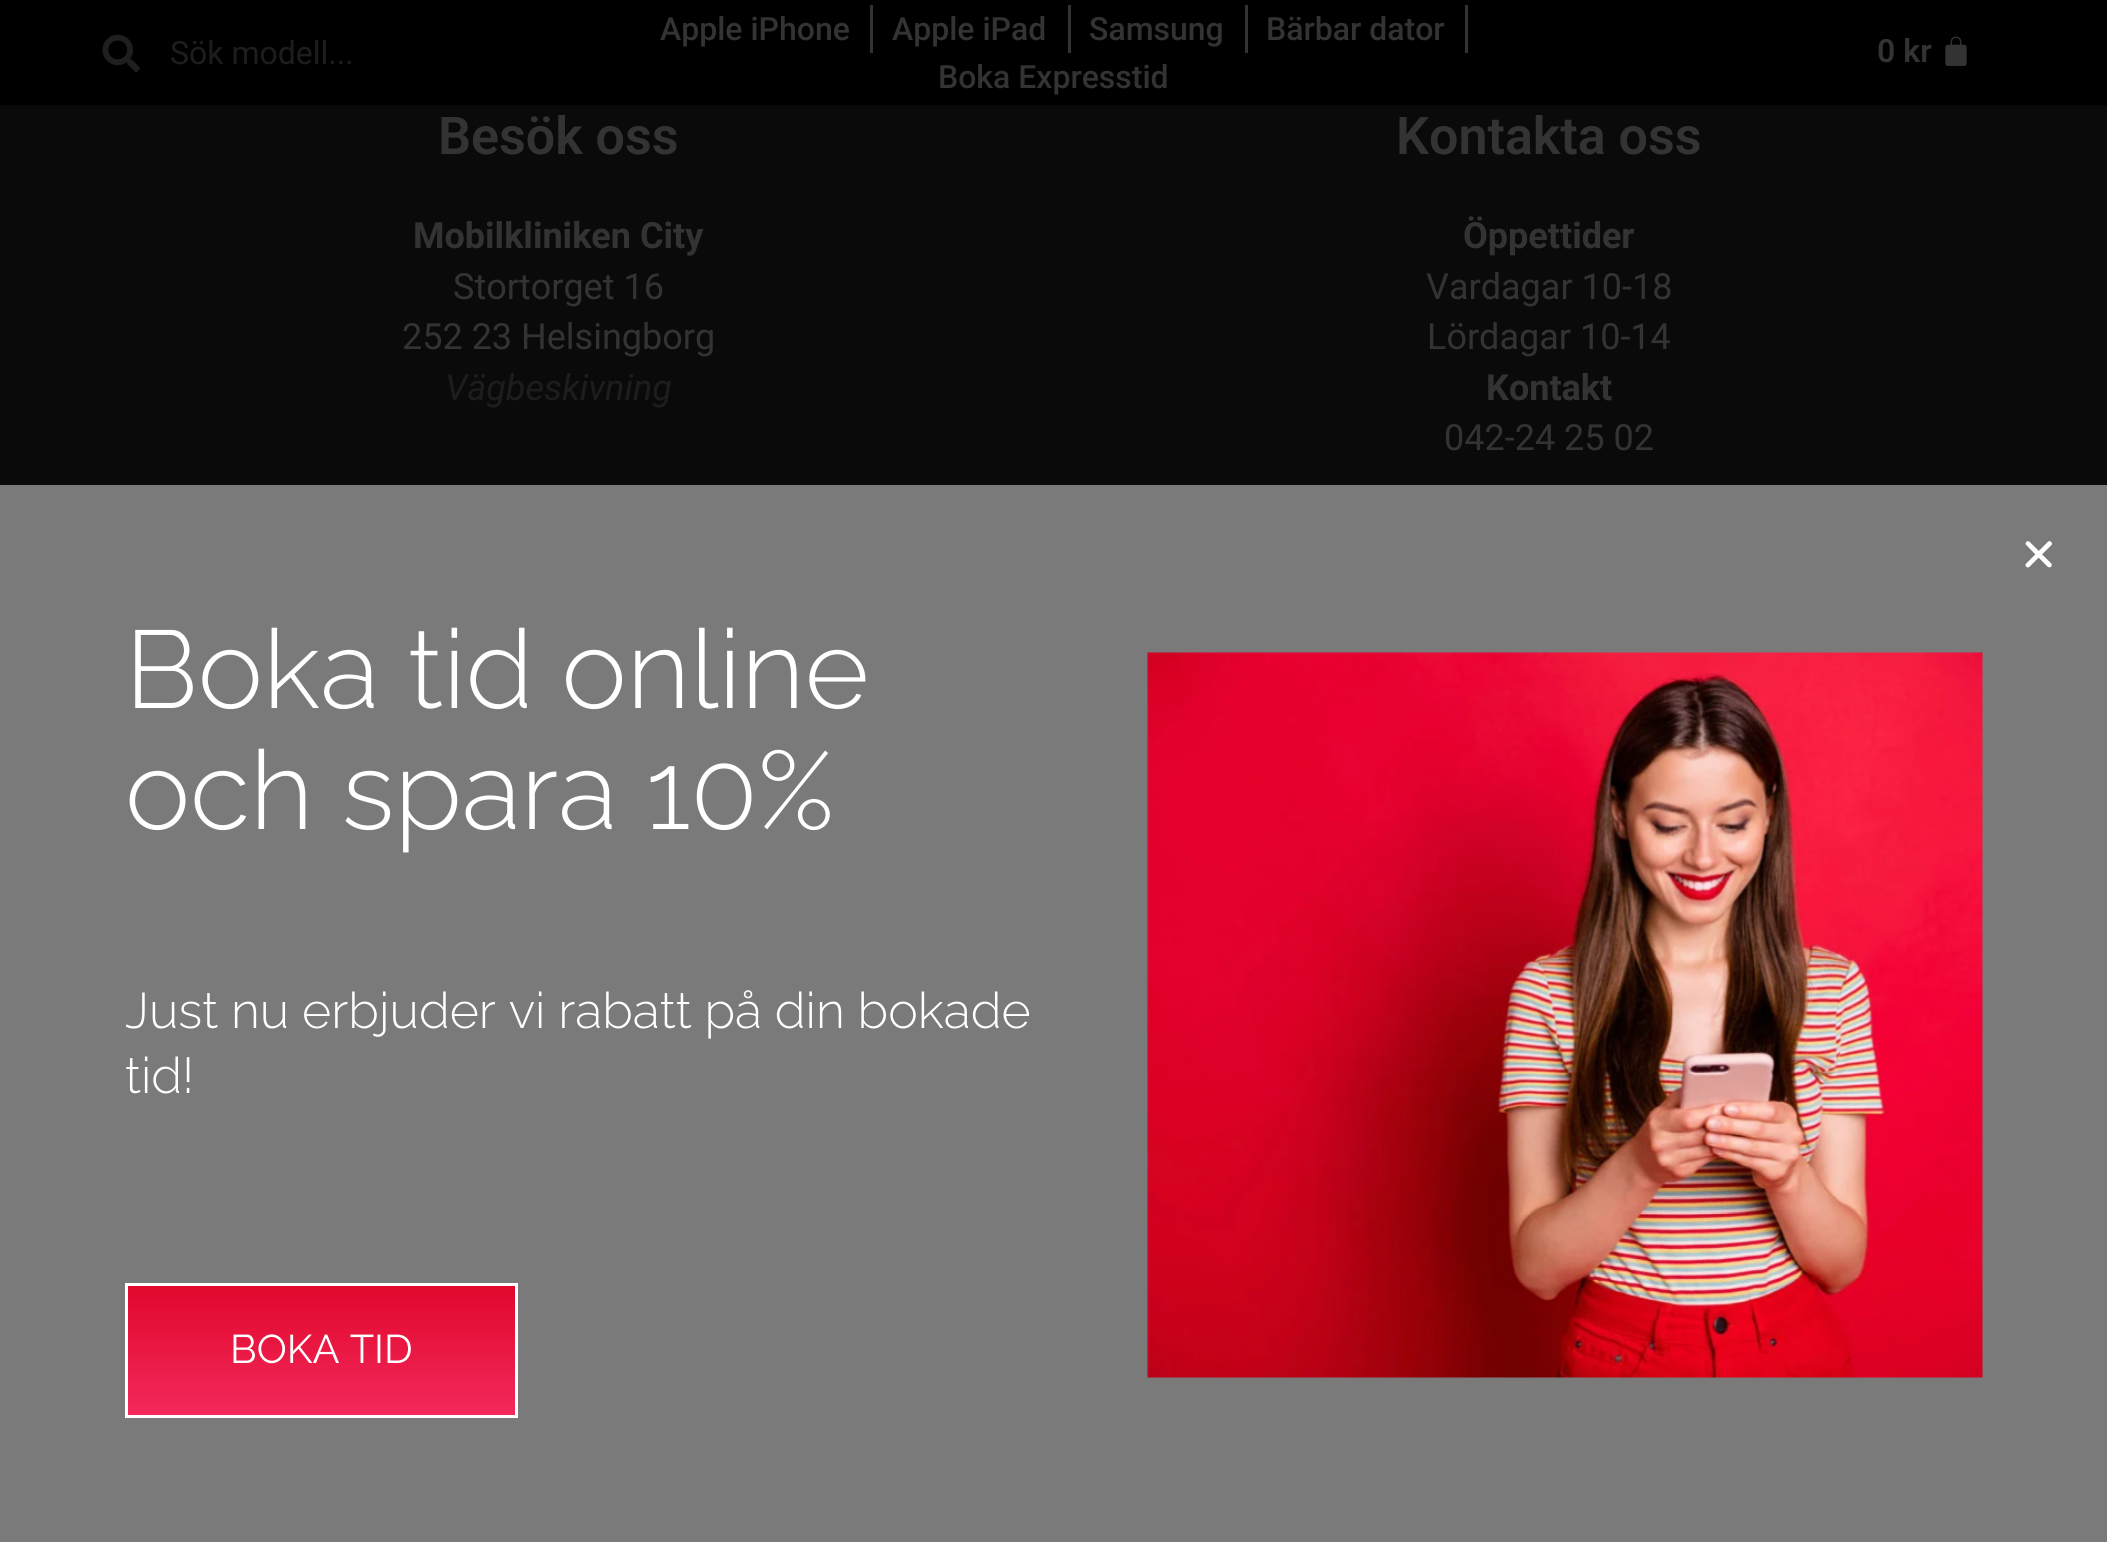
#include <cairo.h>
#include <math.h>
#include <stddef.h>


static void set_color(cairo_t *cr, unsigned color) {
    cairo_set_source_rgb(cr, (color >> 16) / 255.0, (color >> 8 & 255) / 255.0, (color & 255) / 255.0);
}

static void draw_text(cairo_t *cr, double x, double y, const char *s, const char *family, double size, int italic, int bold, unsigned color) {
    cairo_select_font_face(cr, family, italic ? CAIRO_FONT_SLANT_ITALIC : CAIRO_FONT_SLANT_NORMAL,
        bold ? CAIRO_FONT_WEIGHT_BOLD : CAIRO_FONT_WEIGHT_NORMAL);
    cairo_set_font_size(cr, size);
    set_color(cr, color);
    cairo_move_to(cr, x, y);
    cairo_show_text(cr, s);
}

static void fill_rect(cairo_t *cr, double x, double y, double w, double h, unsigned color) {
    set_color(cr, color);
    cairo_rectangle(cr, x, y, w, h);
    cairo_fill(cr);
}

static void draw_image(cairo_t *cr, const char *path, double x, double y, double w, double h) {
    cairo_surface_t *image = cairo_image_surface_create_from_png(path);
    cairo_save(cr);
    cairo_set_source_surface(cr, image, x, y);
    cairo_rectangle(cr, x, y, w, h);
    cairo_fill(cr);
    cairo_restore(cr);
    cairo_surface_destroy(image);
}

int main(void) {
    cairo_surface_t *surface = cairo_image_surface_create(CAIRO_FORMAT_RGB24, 2107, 1542);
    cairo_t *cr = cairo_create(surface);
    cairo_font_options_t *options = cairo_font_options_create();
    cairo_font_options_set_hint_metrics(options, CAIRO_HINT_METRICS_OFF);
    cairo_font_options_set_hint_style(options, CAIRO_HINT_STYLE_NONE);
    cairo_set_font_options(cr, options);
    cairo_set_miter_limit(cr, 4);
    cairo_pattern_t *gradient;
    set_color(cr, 0x0A0A0A);
    cairo_paint(cr);
    fill_rect(cr, 0, 0, 2107, 105, 0x000000);
    draw_image(cr, "assets/img1.png", 102, 34, 38, 39);
    draw_text(cr, 170, 64, "Sök modell...", "Roboto", 32, 0, 0, 0x1D1D1D);
    draw_text(cr, 660, 40, "Apple iPhone", "Roboto Medium", 32, 0, 0, 0x333333);
    fill_rect(cr, 870, 5, 3, 48, 0x333333);
    draw_text(cr, 892, 40, "Apple iPad", "Roboto Medium", 32, 0, 0, 0x333333);
    fill_rect(cr, 1068, 5, 3, 48, 0x333333);
    draw_text(cr, 1089, 40, "Samsung", "Roboto Medium", 32, 0, 0, 0x333333);
    fill_rect(cr, 1245, 5, 3, 48, 0x333333);
    draw_text(cr, 1266, 40, "Bärbar dator", "Roboto Medium", 32, 0, 0, 0x333333);
    fill_rect(cr, 1465, 5, 3, 48, 0x333333);
    draw_text(cr, 938, 88, "Boka Expresstid", "Roboto Medium", 32, 0, 0, 0x333333);
    draw_text(cr, 1877, 62, "0 kr", "Roboto SemiBold", 32, 0, 0, 0x333333);
    draw_image(cr, "assets/img2.png", 1945, 36, 22, 30);
    draw_text(cr, 438, 154, "Besök oss", "Roboto SemiBold", 52, 0, 0, 0x333333);
    draw_text(cr, 413, 248, "Mobilkliniken City", "Roboto", 36, 0, 1, 0x333333);
    draw_text(cr, 453, 299, "Stortorget 16", "Roboto", 36, 0, 0, 0x333333);
    draw_text(cr, 402, 349, "252 23 Helsingborg", "Roboto", 36, 0, 0, 0x333333);
    draw_text(cr, 445, 400, "Vägbeskivning", "Roboto", 36, 1, 0, 0x1D1D1D);
    draw_text(cr, 1396, 154, "Kontakta oss", "Roboto SemiBold", 52, 0, 0, 0x333333);
    draw_text(cr, 1463, 248, "Öppettider", "Roboto", 36, 0, 1, 0x333333);
    draw_text(cr, 1426, 299, "Vardagar 10-18", "Roboto", 36, 0, 0, 0x333333);
    draw_text(cr, 1427, 349, "Lördagar 10-14", "Roboto", 36, 0, 0, 0x333333);
    draw_text(cr, 1486, 400, "Kontakt", "Roboto", 36, 0, 1, 0x333333);
    draw_text(cr, 1444, 450, "042-24 25 02", "Roboto", 36, 0, 0, 0x333333);
    fill_rect(cr, 0, 485, 2107, 1057, 0x7A7A7A);
    draw_image(cr, "assets/img3.png", 2025, 541, 27, 27);
    draw_text(cr, 125, 708, "Boka tid online", "Raleway Light", 110, 0, 0, 0xFFFFFF);
    draw_text(cr, 125, 829, "och spara 10%", "Raleway Light", 110, 0, 0, 0xFFFFFF);
    draw_text(cr, 125, 1028, "Just nu erbjuder vi rabatt på din bokade", "Raleway Light", 50, 0, 0, 0xFFFFFF);
    draw_text(cr, 125, 1093, "tid!", "Raleway Light", 50, 0, 0, 0xFFFFFF);
    gradient = cairo_pattern_create_linear(321, 1285, 321, 1415);
    cairo_pattern_add_color_stop_rgba(gradient, 0, 0.882, 0.027, 0.173, 1);
    cairo_pattern_add_color_stop_rgba(gradient, 1, 0.949, 0.161, 0.357, 1);
    cairo_set_source(cr, gradient);
    cairo_pattern_destroy(gradient);
    cairo_rectangle(cr, 128, 1286, 387, 129);
    cairo_fill(cr);
    cairo_rectangle(cr, 126.5, 1284.5, 390, 132);
    set_color(cr, 0xFFFFFF);
    cairo_set_line_width(cr, 3);
    cairo_stroke(cr);
    draw_text(cr, 230, 1363, "BOKA TID", "Raleway", 40, 0, 0, 0xFFFFFF);
    draw_image(cr, "assets/img4.png", 1147, 652, 836, 726);
    cairo_surface_write_to_png(surface, "output.png");
    cairo_font_options_destroy(options);
    cairo_destroy(cr);
    cairo_surface_destroy(surface);
    return 0;
}
